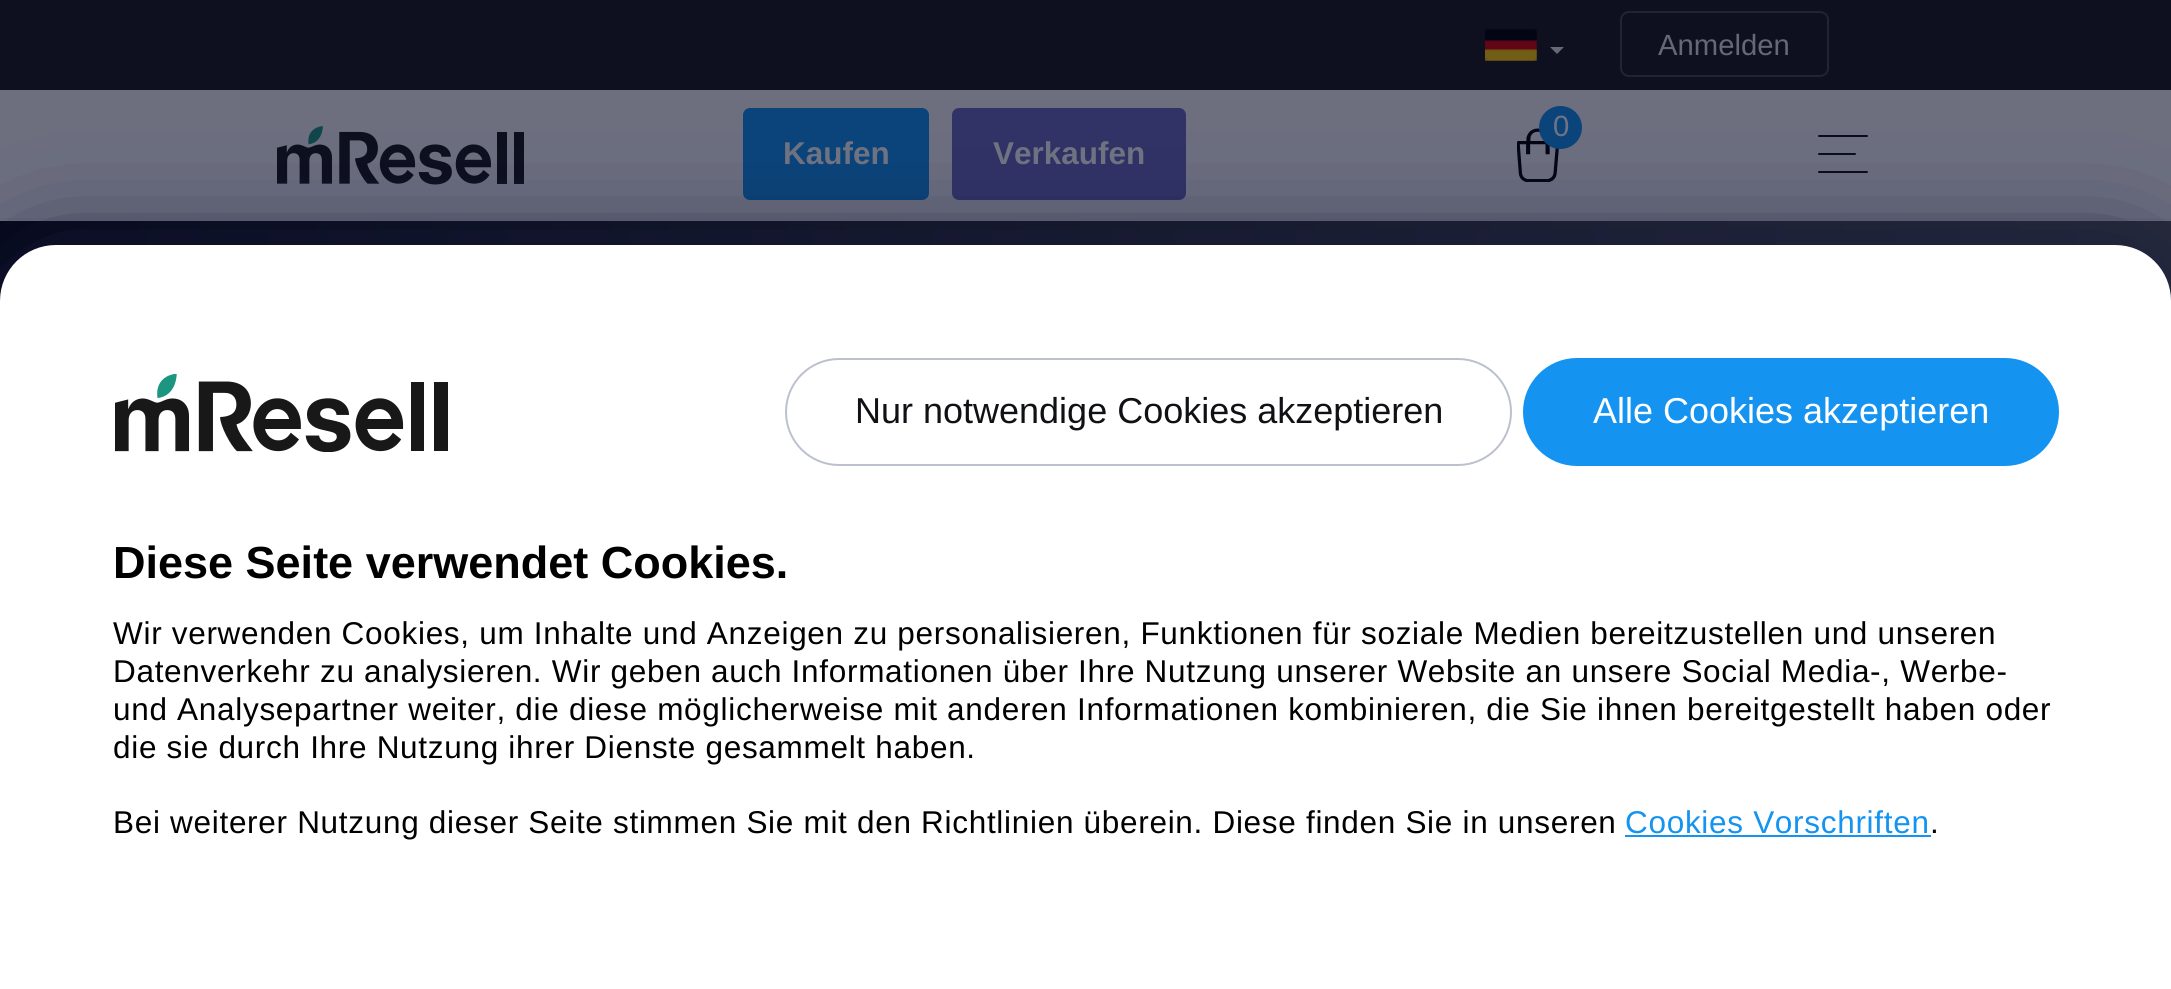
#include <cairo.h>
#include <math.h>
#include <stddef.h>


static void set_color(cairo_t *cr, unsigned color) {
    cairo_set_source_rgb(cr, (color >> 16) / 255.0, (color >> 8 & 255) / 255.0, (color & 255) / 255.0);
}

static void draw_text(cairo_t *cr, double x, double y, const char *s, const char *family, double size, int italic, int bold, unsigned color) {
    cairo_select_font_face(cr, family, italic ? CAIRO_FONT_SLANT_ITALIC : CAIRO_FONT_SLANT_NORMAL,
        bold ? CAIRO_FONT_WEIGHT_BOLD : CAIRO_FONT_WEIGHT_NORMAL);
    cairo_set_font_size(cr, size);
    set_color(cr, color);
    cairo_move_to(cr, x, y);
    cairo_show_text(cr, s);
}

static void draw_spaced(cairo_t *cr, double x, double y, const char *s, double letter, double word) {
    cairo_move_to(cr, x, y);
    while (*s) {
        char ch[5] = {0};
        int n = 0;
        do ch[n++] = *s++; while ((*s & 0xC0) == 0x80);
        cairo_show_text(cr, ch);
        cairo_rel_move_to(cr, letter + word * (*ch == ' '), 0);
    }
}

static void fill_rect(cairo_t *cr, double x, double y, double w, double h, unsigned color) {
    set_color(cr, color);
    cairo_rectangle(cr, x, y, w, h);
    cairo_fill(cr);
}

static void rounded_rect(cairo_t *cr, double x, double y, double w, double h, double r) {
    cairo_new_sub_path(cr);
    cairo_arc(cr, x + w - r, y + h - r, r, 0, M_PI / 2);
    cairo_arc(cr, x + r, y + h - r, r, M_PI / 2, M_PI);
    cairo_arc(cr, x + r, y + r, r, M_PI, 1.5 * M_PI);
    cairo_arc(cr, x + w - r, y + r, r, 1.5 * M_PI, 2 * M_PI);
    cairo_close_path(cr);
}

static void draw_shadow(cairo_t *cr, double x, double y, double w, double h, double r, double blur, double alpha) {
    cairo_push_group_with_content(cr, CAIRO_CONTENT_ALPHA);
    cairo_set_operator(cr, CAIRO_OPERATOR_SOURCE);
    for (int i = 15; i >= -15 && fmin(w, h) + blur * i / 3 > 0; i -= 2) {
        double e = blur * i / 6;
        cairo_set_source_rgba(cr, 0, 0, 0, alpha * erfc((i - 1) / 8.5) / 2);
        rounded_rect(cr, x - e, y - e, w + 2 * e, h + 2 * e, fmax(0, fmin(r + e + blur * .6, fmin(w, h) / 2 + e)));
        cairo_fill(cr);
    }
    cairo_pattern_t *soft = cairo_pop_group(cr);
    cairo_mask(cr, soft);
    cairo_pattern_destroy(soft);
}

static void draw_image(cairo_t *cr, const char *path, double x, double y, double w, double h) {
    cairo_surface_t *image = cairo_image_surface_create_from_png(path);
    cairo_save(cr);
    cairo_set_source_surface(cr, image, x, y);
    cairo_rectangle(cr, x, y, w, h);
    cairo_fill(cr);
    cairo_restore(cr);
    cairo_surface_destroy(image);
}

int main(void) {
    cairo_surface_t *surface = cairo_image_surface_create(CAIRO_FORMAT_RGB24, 2171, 989);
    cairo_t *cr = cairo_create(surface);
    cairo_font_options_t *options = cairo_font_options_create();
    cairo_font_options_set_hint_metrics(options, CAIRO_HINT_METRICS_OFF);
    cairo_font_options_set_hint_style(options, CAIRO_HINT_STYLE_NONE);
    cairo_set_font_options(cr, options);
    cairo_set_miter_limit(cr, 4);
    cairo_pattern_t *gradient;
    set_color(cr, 0xFFFFFF);
    cairo_paint(cr);
    fill_rect(cr, 0, 0, 2171, 90, 0x0E101F);
    draw_image(cr, "assets/img1.png", 1485, 29, 52, 32);
    set_color(cr, 0x656877);
    cairo_new_path(cr);
    cairo_move_to(cr, 1550, 47);
    cairo_line_to(cr, 1564, 47);
    cairo_line_to(cr, 1557, 54);
    cairo_close_path(cr);
    cairo_fill(cr);
    rounded_rect(cr, 1621, 12, 207, 64, 8);
    set_color(cr, 0x212433);
    cairo_stroke(cr);
    draw_text(cr, 1658, 55, "Anmelden", "Liberation Sans", 29.25, 0, 0, 0x656877);
    fill_rect(cr, 0, 90, 2171, 131, 0x6D6F7F);
    fill_rect(cr, 0, 218, 2171, 2, 0x6A6C7C);
    draw_image(cr, "assets/img2.png", 277, 126, 247, 59);
    set_color(cr, 0x0B447B);
    rounded_rect(cr, 744, 109, 184, 90, 6);
    cairo_fill_preserve(cr);
    cairo_stroke(cr);
    draw_text(cr, 783, 164, "Kaufen", "Liberation Sans", 31.5, 0, 1, 0x717382);
    set_color(cr, 0x313266);
    rounded_rect(cr, 953, 109, 232, 90, 6);
    cairo_fill_preserve(cr);
    cairo_stroke(cr);
    draw_text(cr, 993, 164, "Verkaufen", "Liberation Sans", 31.5, 0, 1, 0x717382);
    draw_image(cr, "assets/img3.png", 1517, 128, 42, 54);
    set_color(cr, 0x0B447B);
    cairo_arc(cr, 1560.5, 127.5, 21.5, 0, 2 * M_PI);
    cairo_fill(cr);
    draw_text(cr, 1553, 136, "0", "Liberation Sans", 29.25, 0, 0, 0x717382);
    set_color(cr, 0x0A0C1D);
    rounded_rect(cr, 1818, 135, 50, 2, 1);
    cairo_fill(cr);
    rounded_rect(cr, 1818, 153, 38, 2, 1);
    cairo_fill(cr);
    rounded_rect(cr, 1818, 171, 50, 2, 1);
    cairo_fill(cr);
    gradient = cairo_pattern_create_linear(0, 299, 2171, 299);
    cairo_pattern_add_color_stop_rgba(gradient, 0, 0.012, 0.02, 0.078, 1);
    cairo_pattern_add_color_stop_rgba(gradient, 1, 0.153, 0.165, 0.22, 1);
    cairo_set_source(cr, gradient);
    cairo_pattern_destroy(gradient);
    cairo_rectangle(cr, 0, 221, 2171, 80);
    cairo_fill(cr);
    set_color(cr, 0x191E44);
    draw_shadow(cr, 0, 254, 2171, 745, 56, 49.5, 1);
    set_color(cr, 0xFFFFFF);
    cairo_new_path(cr);
    cairo_move_to(cr, 56, 245);
    cairo_line_to(cr, 2115, 245);
    cairo_curve_to(cr, 2146, 245, 2171, 270, 2171, 301);
    cairo_line_to(cr, 2171, 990);
    cairo_line_to(cr, 0, 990);
    cairo_line_to(cr, 0, 301);
    cairo_curve_to(cr, 0, 270, 25, 245, 56, 245);
    cairo_close_path(cr);
    cairo_fill(cr);
    draw_image(cr, "assets/img4.png", 115, 374, 333, 78);
    rounded_rect(cr, 786, 359, 725, 106, 53);
    set_color(cr, 0xBDC1CF);
    cairo_stroke(cr);
    draw_text(cr, 855, 423, "Nur notwendige Cookies akzeptieren", "Liberation Sans", 36, 0, 0, 0x101114);
    set_color(cr, 0x1493F0);
    rounded_rect(cr, 1524, 359, 534, 106, 53);
    cairo_fill_preserve(cr);
    cairo_stroke(cr);
    draw_text(cr, 1593, 423, "Alle Cookies akzeptieren", "Liberation Sans", 36, 0, 0, 0xFFFFFF);
    draw_text(cr, 113, 578, "Diese Seite verwendet Cookies.", "Liberation Sans", 45, 0, 1, 0x000000);
    cairo_select_font_face(cr, "Liberation Sans", CAIRO_FONT_SLANT_NORMAL, CAIRO_FONT_WEIGHT_NORMAL);
    cairo_set_font_size(cr, 31.5);
    draw_spaced(cr, 113, 644, "Wir verwenden Cookies, um Inhalte und Anzeigen zu personalisieren, Funktionen für soziale Medien bereitzustellen und unseren", 0.7, 0);
    draw_spaced(cr, 113, 682, "Datenverkehr zu analysieren. Wir geben auch Informationen über Ihre Nutzung unserer Website an unsere Social Media-, Werbe-", 0.7, 0);
    draw_spaced(cr, 113, 720, "und Analysepartner weiter, die diese möglicherweise mit anderen Informationen kombinieren, die Sie ihnen bereitgestellt haben oder", 0.7, 0);
    draw_spaced(cr, 113, 758, "die sie durch Ihre Nutzung ihrer Dienste gesammelt haben.", 0.7, 0);
    draw_spaced(cr, 113, 833, "Bei weiterer Nutzung dieser Seite stimmen Sie mit den Richtlinien überein. Diese finden Sie in unseren", 0.7, 0);
    set_color(cr, 0x1493F0);
    draw_spaced(cr, 1625, 833, "Cookies Vorschriften", 0.7, 0);
    fill_rect(cr, 1625, 835, 306, 2, 0x1493F0);
    set_color(cr, 0x000000);
    draw_spaced(cr, 1930, 833, ".", 0.7, 0);
    cairo_surface_write_to_png(surface, "output.png");
    cairo_font_options_destroy(options);
    cairo_destroy(cr);
    cairo_surface_destroy(surface);
    return 0;
}
